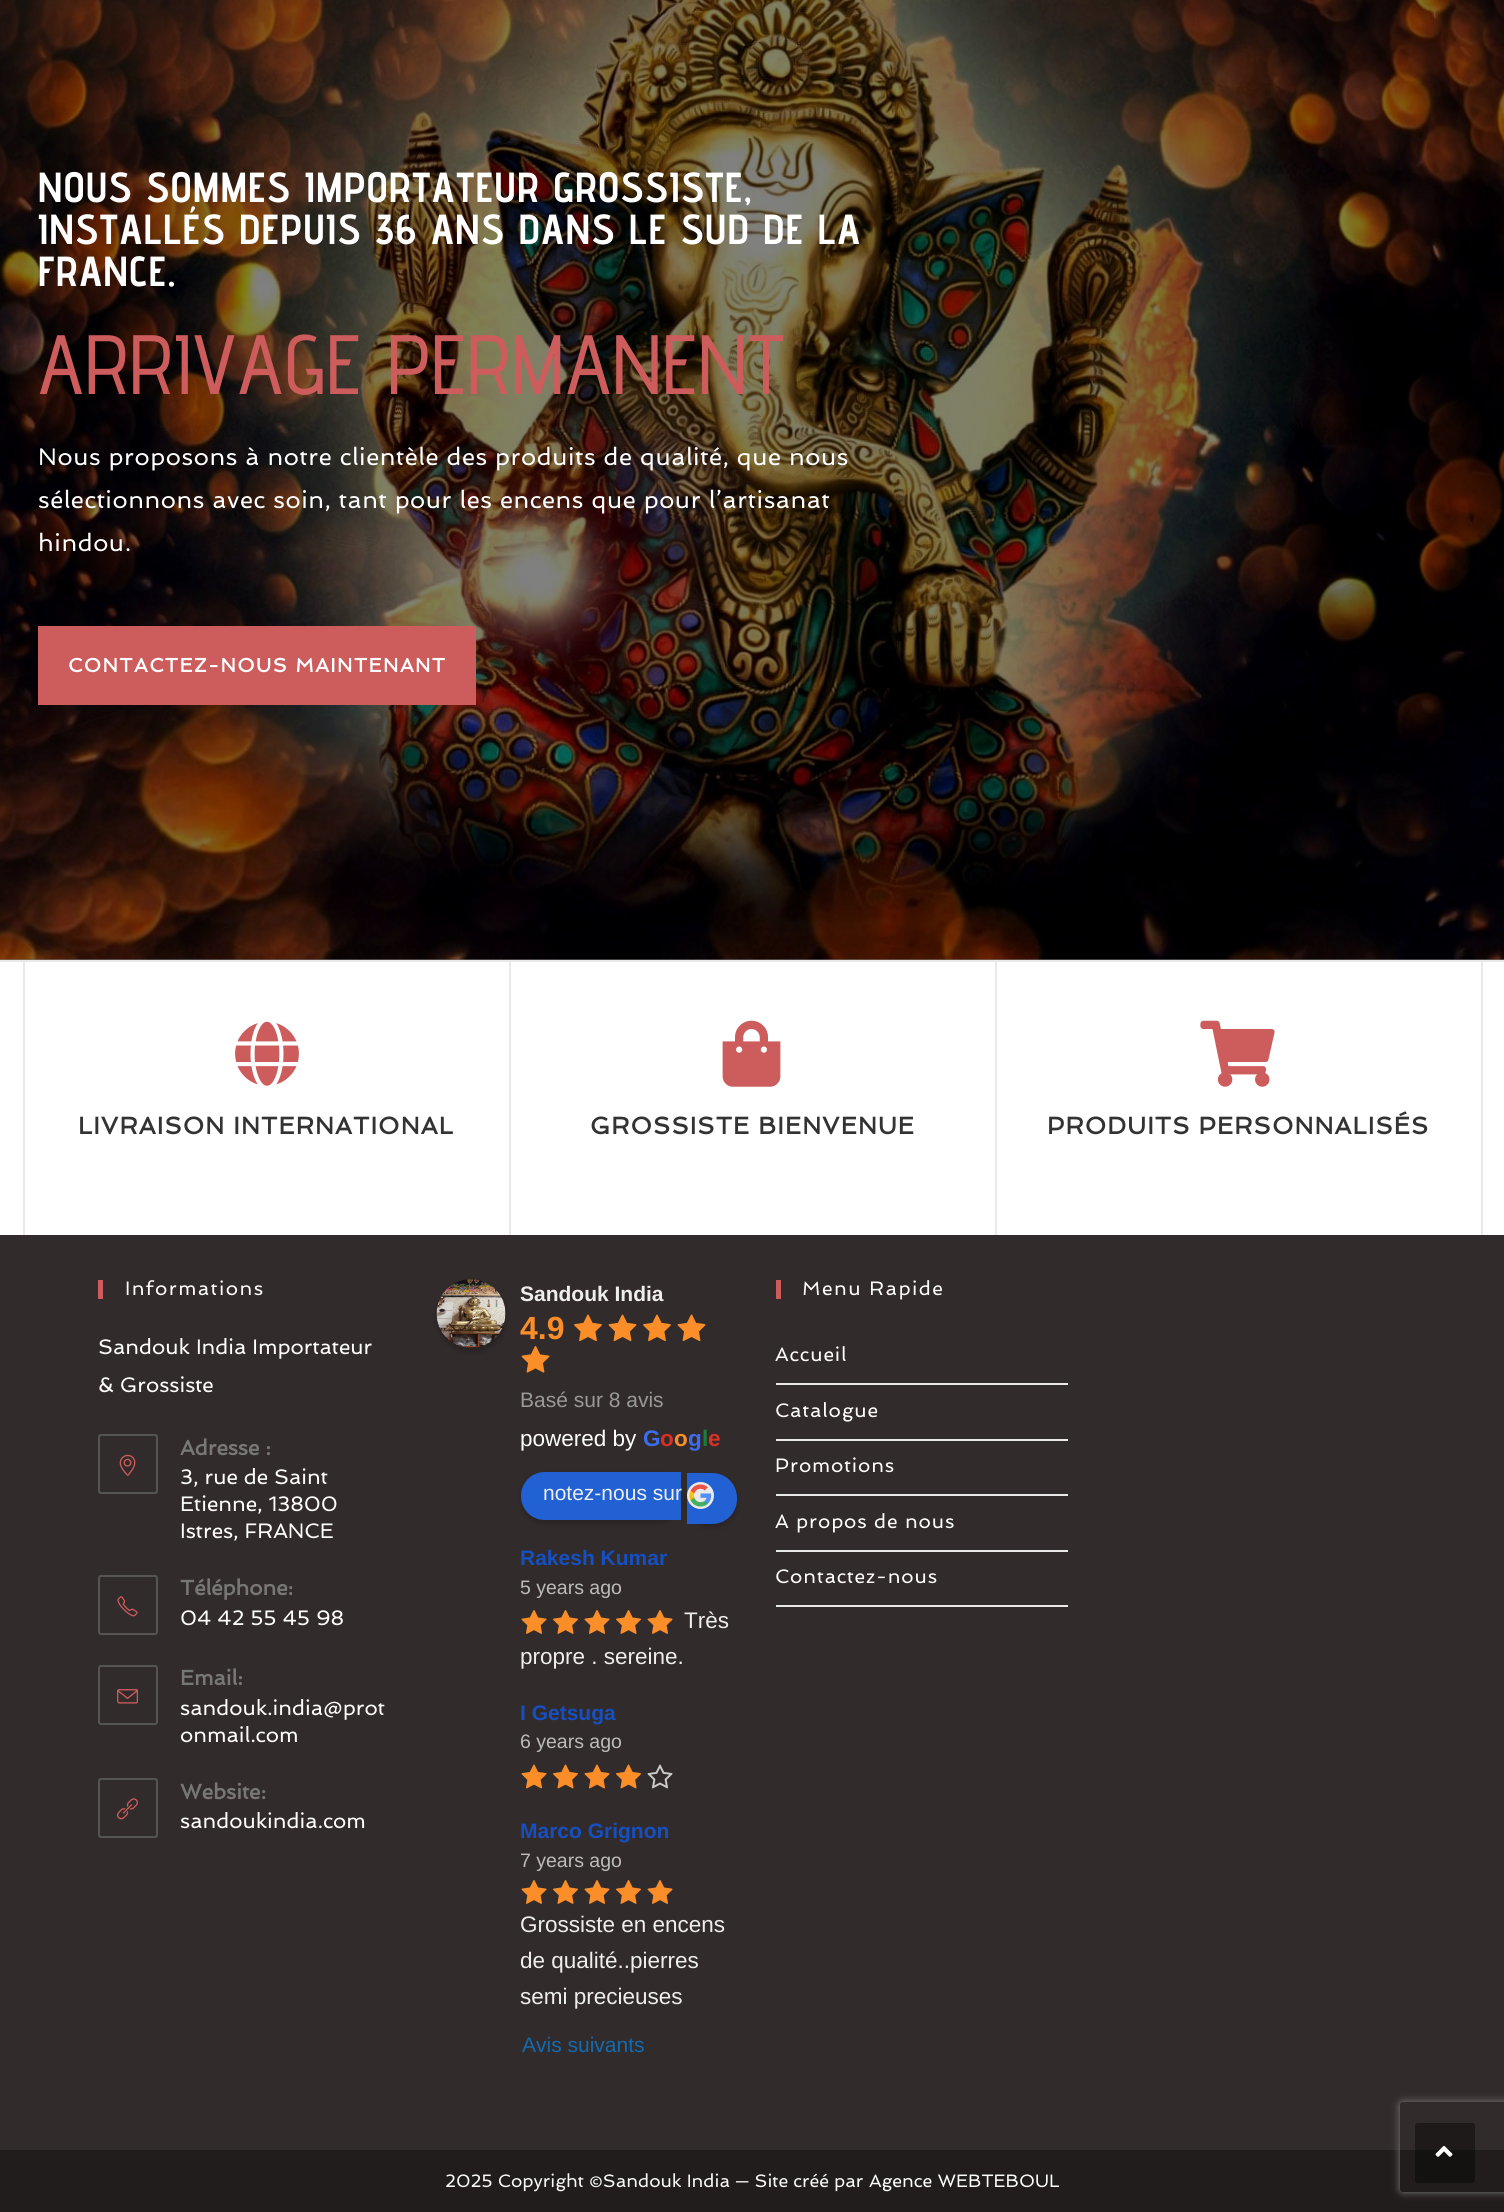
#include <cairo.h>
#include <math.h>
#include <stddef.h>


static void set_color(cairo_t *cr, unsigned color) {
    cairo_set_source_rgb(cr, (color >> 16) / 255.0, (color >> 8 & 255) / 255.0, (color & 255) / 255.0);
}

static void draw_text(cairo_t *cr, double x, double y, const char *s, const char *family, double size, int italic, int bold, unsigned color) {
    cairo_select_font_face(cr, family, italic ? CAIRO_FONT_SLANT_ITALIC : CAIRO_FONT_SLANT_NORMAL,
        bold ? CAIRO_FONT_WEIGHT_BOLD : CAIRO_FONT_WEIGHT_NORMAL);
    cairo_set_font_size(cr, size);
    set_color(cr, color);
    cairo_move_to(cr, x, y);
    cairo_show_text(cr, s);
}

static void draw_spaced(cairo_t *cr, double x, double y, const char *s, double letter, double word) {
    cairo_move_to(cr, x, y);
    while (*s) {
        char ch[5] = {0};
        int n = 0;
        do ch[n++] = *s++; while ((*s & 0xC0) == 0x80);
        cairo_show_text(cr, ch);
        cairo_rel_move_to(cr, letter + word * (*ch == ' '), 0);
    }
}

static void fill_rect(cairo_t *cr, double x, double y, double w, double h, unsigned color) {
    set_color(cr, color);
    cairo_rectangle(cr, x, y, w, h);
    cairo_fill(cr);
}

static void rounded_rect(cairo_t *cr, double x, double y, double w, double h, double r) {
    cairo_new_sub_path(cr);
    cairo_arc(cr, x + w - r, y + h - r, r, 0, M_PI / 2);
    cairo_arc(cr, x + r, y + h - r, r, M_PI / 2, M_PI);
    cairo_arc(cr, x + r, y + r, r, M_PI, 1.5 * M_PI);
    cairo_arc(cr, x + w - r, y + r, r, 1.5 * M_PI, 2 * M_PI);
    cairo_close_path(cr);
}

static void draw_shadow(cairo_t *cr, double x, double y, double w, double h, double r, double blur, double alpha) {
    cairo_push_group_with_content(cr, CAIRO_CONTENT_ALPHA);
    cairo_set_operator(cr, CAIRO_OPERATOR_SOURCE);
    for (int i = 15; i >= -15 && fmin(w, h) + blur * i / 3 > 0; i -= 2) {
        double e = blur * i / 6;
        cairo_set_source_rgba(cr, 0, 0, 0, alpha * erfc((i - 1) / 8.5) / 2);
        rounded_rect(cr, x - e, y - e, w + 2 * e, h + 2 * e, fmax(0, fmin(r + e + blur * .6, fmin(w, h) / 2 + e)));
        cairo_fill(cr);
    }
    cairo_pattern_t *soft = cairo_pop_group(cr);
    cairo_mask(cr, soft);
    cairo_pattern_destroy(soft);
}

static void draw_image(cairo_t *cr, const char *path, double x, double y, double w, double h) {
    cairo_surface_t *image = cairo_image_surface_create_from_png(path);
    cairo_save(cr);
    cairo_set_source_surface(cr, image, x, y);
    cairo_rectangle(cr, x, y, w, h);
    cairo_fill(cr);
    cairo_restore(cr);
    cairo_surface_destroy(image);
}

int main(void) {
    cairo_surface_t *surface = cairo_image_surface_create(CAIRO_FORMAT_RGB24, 1504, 2212);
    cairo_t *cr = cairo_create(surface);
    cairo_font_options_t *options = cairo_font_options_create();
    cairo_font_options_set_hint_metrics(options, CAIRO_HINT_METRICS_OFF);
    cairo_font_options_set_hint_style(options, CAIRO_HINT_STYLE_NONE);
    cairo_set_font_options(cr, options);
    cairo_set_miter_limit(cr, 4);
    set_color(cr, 0xFFFFFF);
    cairo_paint(cr);
    fill_rect(cr, 0, 959, 1504, 1, 0x808080);
    draw_image(cr, "assets/img1.png", 0, 0, 1504, 960);
    cairo_select_font_face(cr, "Advent Pro", CAIRO_FONT_SLANT_NORMAL, CAIRO_FONT_WEIGHT_BOLD);
    cairo_set_font_size(cr, 42);
    set_color(cr, 0xFFFFFF);
    draw_spaced(cr, 38, 202, "NOUS SOMMES IMPORTATEUR GROSSISTE,", 1.5, 0);
    draw_spaced(cr, 38, 244, "INSTALLÉS DEPUIS 36 ANS DANS LE SUD DE LA", 1.5, 0);
    draw_spaced(cr, 38, 286, "FRANCE.", 1.5, 0);
    cairo_select_font_face(cr, "Advent Pro Medium", CAIRO_FONT_SLANT_NORMAL, CAIRO_FONT_WEIGHT_NORMAL);
    cairo_set_font_size(cr, 84);
    set_color(cr, 0xCD5C5C);
    draw_spaced(cr, 38, 394, "ARRIVAGE PERMANENT", 1.5, 0);
    cairo_select_font_face(cr, "Spinnaker", CAIRO_FONT_SLANT_NORMAL, CAIRO_FONT_WEIGHT_NORMAL);
    cairo_set_font_size(cr, 24);
    set_color(cr, 0xFFFFFF);
    draw_spaced(cr, 38, 465, "Nous proposons à notre clientèle des produits de qualité, que nous", 0.6, 0);
    draw_spaced(cr, 38, 508, "sélectionnons avec soin, tant pour les encens que pour l’artisanat", 0.6, 0);
    draw_spaced(cr, 38, 551, "hindou.", 0.6, 0);
    fill_rect(cr, 38, 626, 438, 79, 0xCD5C5C);
    cairo_select_font_face(cr, "Spinnaker", CAIRO_FONT_SLANT_NORMAL, CAIRO_FONT_WEIGHT_BOLD);
    cairo_set_font_size(cr, 19.5);
    set_color(cr, 0xFFFFFF);
    draw_spaced(cr, 68, 672, "CONTACTEZ-NOUS MAINTENANT", 1.5, 0);
    fill_rect(cr, 0, 960, 1504, 2, 0xE9E9E9);
    fill_rect(cr, 23, 962, 2, 273, 0xE9E9E9);
    draw_image(cr, "assets/img2.png", 235, 1021, 64, 65);
    cairo_set_font_size(cr, 24);
    set_color(cr, 0x333333);
    draw_spaced(cr, 78, 1134, "LIVRAISON INTERNATIONAL", 1.2, 0);
    fill_rect(cr, 995, 962, 2, 273, 0xE9E9E9);
    fill_rect(cr, 509, 962, 2, 273, 0xE9E9E9);
    draw_image(cr, "assets/img3.png", 722, 1020, 59, 67);
    set_color(cr, 0x333333);
    draw_spaced(cr, 590, 1134, "GROSSISTE BIENVENUE", 1.2, 0);
    fill_rect(cr, 1481, 962, 2, 273, 0xE9E9E9);
    draw_image(cr, "assets/img4.png", 1200, 1020, 75, 67);
    set_color(cr, 0x333333);
    draw_spaced(cr, 1047, 1134, "PRODUITS PERSONNALISÉS", 1.2, 0);
    fill_rect(cr, 0, 1235, 1504, 915, 0x322B2B);
    fill_rect(cr, 98, 1280, 5, 19, 0xCD5C5C);
    cairo_select_font_face(cr, "Spinnaker", CAIRO_FONT_SLANT_NORMAL, CAIRO_FONT_WEIGHT_NORMAL);
    cairo_set_font_size(cr, 19.5);
    set_color(cr, 0xFFFFFF);
    draw_spaced(cr, 125, 1295, "Informations", 1.5, 0);
    draw_text(cr, 98, 1354, "Sandouk India Importateur", "Spinnaker", 21, 0, 0, 0xFFFFFF);
    draw_text(cr, 98, 1392, "& Grossiste", "Spinnaker", 21, 0, 0, 0xFFFFFF);
    rounded_rect(cr, 99, 1435, 58, 58, 2);
    set_color(cr, 0x555555);
    cairo_stroke(cr);
    draw_image(cr, "assets/img5.png", 119, 1454, 17, 22);
    draw_text(cr, 180, 1455, "Adresse :", "Spinnaker", 21, 0, 1, 0x777777);
    draw_text(cr, 180, 1484, "3, rue de Saint", "Spinnaker", 21, 0, 0, 0xFFFFFF);
    draw_text(cr, 180, 1511, "Etienne, 13800", "Spinnaker", 21, 0, 0, 0xFFFFFF);
    draw_text(cr, 180, 1538, "Istres, FRANCE", "Spinnaker", 21, 0, 0, 0xFFFFFF);
    rounded_rect(cr, 99, 1576, 58, 58, 2);
    set_color(cr, 0x555555);
    cairo_stroke(cr);
    draw_image(cr, "assets/img6.png", 117, 1596, 21, 21);
    draw_text(cr, 180, 1595, "Téléphone:", "Spinnaker", 21, 0, 1, 0x777777);
    draw_text(cr, 180, 1625, "04 42 55 45 98", "Spinnaker", 21, 0, 0, 0xFFFFFF);
    rounded_rect(cr, 99, 1666, 58, 58, 2);
    set_color(cr, 0x555555);
    cairo_stroke(cr);
    draw_image(cr, "assets/img7.png", 117, 1689, 21, 15);
    draw_text(cr, 180, 1685, "Email:", "Spinnaker", 21, 0, 1, 0x777777);
    draw_text(cr, 180, 1715, "sandouk.india@prot", "Spinnaker", 21, 0, 0, 0xFFFFFF);
    draw_text(cr, 180, 1742, "onmail.com", "Spinnaker", 21, 0, 0, 0xFFFFFF);
    rounded_rect(cr, 99, 1779, 58, 58, 2);
    set_color(cr, 0x555555);
    cairo_stroke(cr);
    draw_image(cr, "assets/img8.png", 117, 1798, 21, 22);
    draw_text(cr, 180, 1799, "Website:", "Spinnaker", 21, 0, 1, 0x777777);
    draw_text(cr, 180, 1828, "sandoukindia.com", "Spinnaker", 21, 0, 0, 0xFFFFFF);
    set_color(cr, 0x000000);
    draw_shadow(cr, 437, 1283, 69, 69, 34.5, 3, 0.24);
    draw_image(cr, "assets/img9.png", 436, 1279, 70, 69);
    draw_text(cr, 520, 1301, "Sandouk India", "Liberation Sans", 21, 0, 1, 0xEEEEEE);
    draw_image(cr, "assets/img10.png", 574, 1314, 28, 28);
    draw_image(cr, "assets/img11.png", 608, 1314, 29, 28);
    draw_image(cr, "assets/img10.png", 643, 1314, 28, 28);
    draw_image(cr, "assets/img11.png", 677, 1314, 29, 28);
    draw_image(cr, "assets/img12.png", 521, 1346, 29, 27);
    draw_text(cr, 520, 1339, "4.9", "Liberation Sans", 32, 0, 1, 0xFB8E28);
    draw_text(cr, 520, 1407, "Basé sur 8 avis", "Liberation Sans", 21, 0, 0, 0x999999);
    draw_text(cr, 520, 1446, "powered by", "Liberation Sans", 22.5, 0, 0, 0xFFFFFF);
    draw_text(cr, 643, 1446, "G", "Liberation Sans", 22.5, 0, 1, 0x3C6DF0);
    draw_text(cr, 660, 1446, "o", "Liberation Sans", 22.5, 0, 1, 0xD93025);
    draw_text(cr, 674, 1446, "o", "Liberation Sans", 22.5, 0, 1, 0xFB8E28);
    draw_text(cr, 688, 1446, "g", "Liberation Sans", 22.5, 0, 1, 0x3C6DF0);
    draw_text(cr, 702, 1446, "l", "Liberation Sans", 22.5, 0, 1, 0x188038);
    draw_text(cr, 708, 1446, "e", "Liberation Sans", 22.5, 0, 1, 0xD93025);
    set_color(cr, 0x050404);
    draw_shadow(cr, 521, 1475, 160, 48, 24, 3, 0.24);
    set_color(cr, 0x2161D4);
    cairo_new_path(cr);
    cairo_move_to(cr, 545, 1472);
    cairo_line_to(cr, 681, 1472);
    cairo_line_to(cr, 681, 1520);
    cairo_line_to(cr, 545, 1520);
    cairo_curve_to(cr, 531.5, 1520, 521, 1509.5, 521, 1496);
    cairo_curve_to(cr, 521, 1482.5, 531.5, 1472, 545, 1472);
    cairo_close_path(cr);
    cairo_fill(cr);
    set_color(cr, 0x050404);
    draw_shadow(cr, 687, 1476, 50, 51, 25, 3, 0.24);
    set_color(cr, 0x2161D4);
    cairo_new_path(cr);
    cairo_move_to(cr, 687, 1473);
    cairo_line_to(cr, 712, 1473);
    cairo_curve_to(cr, 726, 1473, 737, 1484, 737, 1498);
    cairo_line_to(cr, 737, 1499);
    cairo_curve_to(cr, 737, 1513, 726, 1524, 712, 1524);
    cairo_line_to(cr, 687, 1524);
    cairo_close_path(cr);
    cairo_fill(cr);
    draw_text(cr, 543, 1500, "notez-nous sur", "Liberation Sans", 21, 0, 0, 0xEEEEEE);
    set_color(cr, 0xEBEAEA);
    cairo_new_path(cr);
    cairo_arc(cr, 700.5, 1495.5, 13.5, 0, 2 * M_PI);
    cairo_fill(cr);
    draw_image(cr, "assets/img13.png", 689, 1484, 23, 23);
    draw_text(cr, 520, 1565, "Rakesh Kumar", "Liberation Sans", 21, 0, 1, 0x154FC1);
    draw_text(cr, 520, 1594, "5 years ago", "Liberation Sans", 19.5, 0, 0, 0xBBBBBB);
    draw_image(cr, "assets/img14.png", 521, 1610, 26, 24);
    draw_image(cr, "assets/img15.png", 553, 1610, 25, 24);
    draw_image(cr, "assets/img14.png", 584, 1610, 26, 24);
    draw_image(cr, "assets/img15.png", 616, 1610, 25, 24);
    draw_image(cr, "assets/img14.png", 647, 1610, 26, 24);
    draw_text(cr, 684, 1628, "Très", "Liberation Sans", 22.5, 0, 0, 0xEEEEEE);
    draw_text(cr, 520, 1664, "propre . sereine.", "Liberation Sans", 22.5, 0, 0, 0xEEEEEE);
    draw_text(cr, 520, 1720, "I Getsuga", "Liberation Sans", 21, 0, 1, 0x154FC1);
    draw_text(cr, 520, 1748, "6 years ago", "Liberation Sans", 19.5, 0, 0, 0xBBBBBB);
    draw_image(cr, "assets/img16.png", 521, 1764, 26, 25);
    draw_image(cr, "assets/img17.png", 553, 1764, 25, 25);
    draw_image(cr, "assets/img16.png", 584, 1764, 26, 25);
    draw_image(cr, "assets/img17.png", 616, 1764, 25, 25);
    draw_image(cr, "assets/img18.png", 647, 1764, 26, 25);
    draw_text(cr, 520, 1838, "Marco Grignon", "Liberation Sans", 21, 0, 1, 0x154FC1);
    draw_text(cr, 520, 1867, "7 years ago", "Liberation Sans", 19.5, 0, 0, 0xBBBBBB);
    draw_image(cr, "assets/img14.png", 521, 1880, 26, 24);
    draw_image(cr, "assets/img15.png", 553, 1880, 25, 24);
    draw_image(cr, "assets/img14.png", 584, 1880, 26, 24);
    draw_image(cr, "assets/img15.png", 616, 1880, 25, 24);
    draw_image(cr, "assets/img14.png", 647, 1880, 26, 24);
    draw_text(cr, 520, 1932, "Grossiste en encens", "Liberation Sans", 22.5, 0, 0, 0xEEEEEE);
    draw_text(cr, 520, 1968, "de qualité..pierres", "Liberation Sans", 22.5, 0, 0, 0xEEEEEE);
    draw_text(cr, 520, 2004, "semi precieuses", "Liberation Sans", 22.5, 0, 0, 0xEEEEEE);
    draw_text(cr, 522, 2052, "Avis suivants", "Liberation Sans", 21, 0, 0, 0x136AAF);
    fill_rect(cr, 776, 1280, 5, 19, 0xCD5C5C);
    cairo_select_font_face(cr, "Spinnaker", CAIRO_FONT_SLANT_NORMAL, CAIRO_FONT_WEIGHT_NORMAL);
    cairo_set_font_size(cr, 19.5);
    set_color(cr, 0xFFFFFF);
    draw_spaced(cr, 802, 1295, "Menu Rapide", 1.5, 0);
    fill_rect(cr, 776, 1383, 292, 2, 0xE9E9E9);
    set_color(cr, 0xFFFFFF);
    draw_spaced(cr, 775, 1361, "Accueil", 0.9, 0);
    fill_rect(cr, 776, 1439, 292, 2, 0xE9E9E9);
    set_color(cr, 0xFFFFFF);
    draw_spaced(cr, 775, 1417, "Catalogue", 0.9, 0);
    fill_rect(cr, 776, 1494, 292, 2, 0xE9E9E9);
    set_color(cr, 0xFFFFFF);
    draw_spaced(cr, 775, 1472, "Promotions", 0.9, 0);
    fill_rect(cr, 776, 1550, 292, 2, 0xE9E9E9);
    set_color(cr, 0xFFFFFF);
    draw_spaced(cr, 775, 1528, "A propos de nous", 0.9, 0);
    fill_rect(cr, 776, 1605, 292, 2, 0xE9E9E9);
    set_color(cr, 0xFFFFFF);
    draw_spaced(cr, 775, 1583, "Contactez-nous", 0.9, 0);
    fill_rect(cr, 0, 2150, 1504, 62, 0x221D1D);
    draw_text(cr, 445, 2187, "2025 Copyright ©Sandouk India — Site créé par", "Spinnaker", 18, 0, 0, 0xF9F9F9);
    draw_text(cr, 869, 2187, "Agence WEBTEBOUL", "Spinnaker", 18, 0, 0, 0xFFFFFF);
    cairo_save(cr);
    cairo_set_fill_rule(cr, CAIRO_FILL_RULE_EVEN_ODD);
    cairo_new_path(cr);
    cairo_move_to(cr, 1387, 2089);
    cairo_line_to(cr, 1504, 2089);
    cairo_line_to(cr, 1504, 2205);
    cairo_line_to(cr, 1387, 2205);
    cairo_close_path(cr);
    cairo_move_to(cr, 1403, 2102);
    cairo_line_to(cr, 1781, 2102);
    cairo_curve_to(cr, 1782.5, 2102, 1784, 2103.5, 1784, 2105);
    cairo_line_to(cr, 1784, 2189);
    cairo_curve_to(cr, 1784, 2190.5, 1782.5, 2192, 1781, 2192);
    cairo_line_to(cr, 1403, 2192);
    cairo_curve_to(cr, 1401.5, 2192, 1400, 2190.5, 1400, 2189);
    cairo_line_to(cr, 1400, 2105);
    cairo_curve_to(cr, 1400, 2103.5, 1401.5, 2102, 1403, 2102);
    cairo_close_path(cr);
    cairo_clip(cr);
    set_color(cr, 0x808080);
    draw_shadow(cr, 1400, 2102, 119, 90, 3, 4, 1);
    cairo_restore(cr);
    cairo_set_source_rgba(cr, 0, 0, 0, 0.4);
    rounded_rect(cr, 1415, 2123, 60, 60, 3);
    cairo_fill(cr);
    draw_image(cr, "assets/img19.png", 1435, 2146, 18, 11);
    cairo_surface_write_to_png(surface, "output.png");
    cairo_font_options_destroy(options);
    cairo_destroy(cr);
    cairo_surface_destroy(surface);
    return 0;
}
